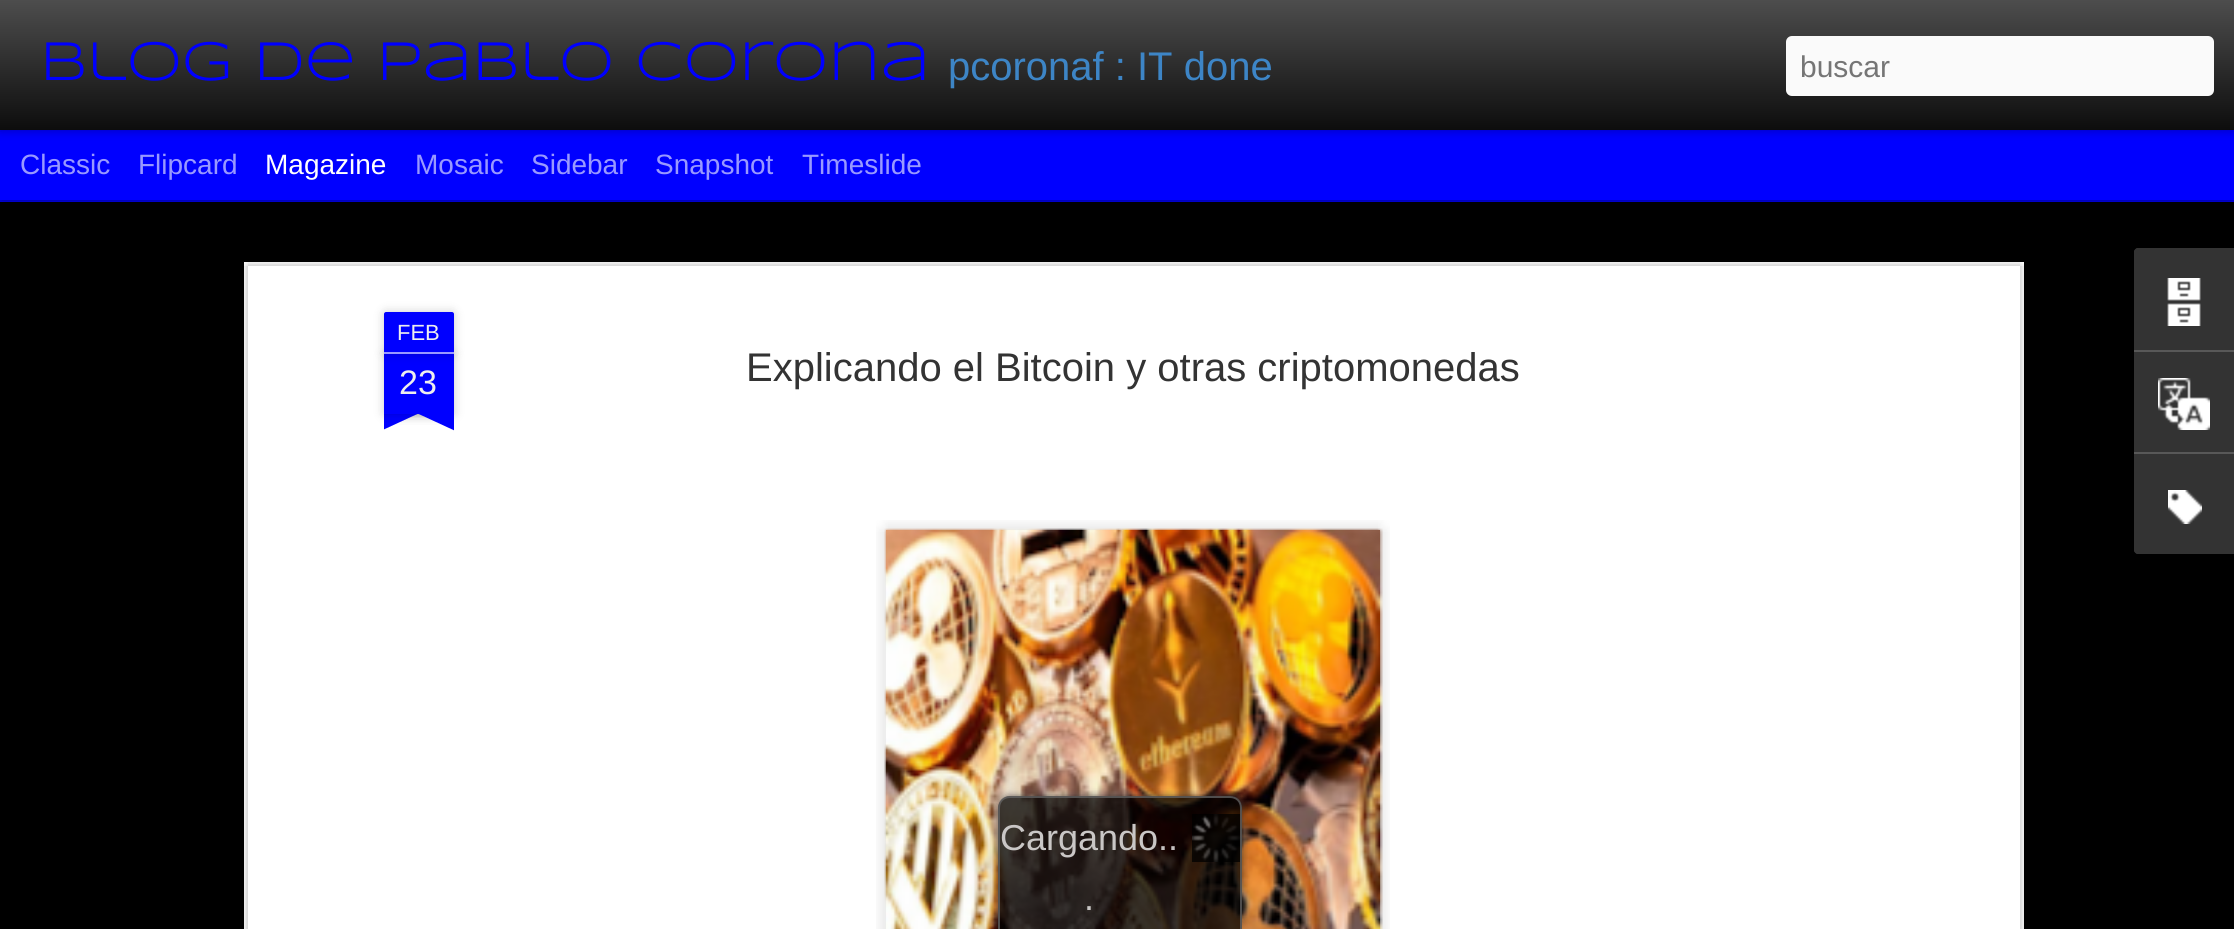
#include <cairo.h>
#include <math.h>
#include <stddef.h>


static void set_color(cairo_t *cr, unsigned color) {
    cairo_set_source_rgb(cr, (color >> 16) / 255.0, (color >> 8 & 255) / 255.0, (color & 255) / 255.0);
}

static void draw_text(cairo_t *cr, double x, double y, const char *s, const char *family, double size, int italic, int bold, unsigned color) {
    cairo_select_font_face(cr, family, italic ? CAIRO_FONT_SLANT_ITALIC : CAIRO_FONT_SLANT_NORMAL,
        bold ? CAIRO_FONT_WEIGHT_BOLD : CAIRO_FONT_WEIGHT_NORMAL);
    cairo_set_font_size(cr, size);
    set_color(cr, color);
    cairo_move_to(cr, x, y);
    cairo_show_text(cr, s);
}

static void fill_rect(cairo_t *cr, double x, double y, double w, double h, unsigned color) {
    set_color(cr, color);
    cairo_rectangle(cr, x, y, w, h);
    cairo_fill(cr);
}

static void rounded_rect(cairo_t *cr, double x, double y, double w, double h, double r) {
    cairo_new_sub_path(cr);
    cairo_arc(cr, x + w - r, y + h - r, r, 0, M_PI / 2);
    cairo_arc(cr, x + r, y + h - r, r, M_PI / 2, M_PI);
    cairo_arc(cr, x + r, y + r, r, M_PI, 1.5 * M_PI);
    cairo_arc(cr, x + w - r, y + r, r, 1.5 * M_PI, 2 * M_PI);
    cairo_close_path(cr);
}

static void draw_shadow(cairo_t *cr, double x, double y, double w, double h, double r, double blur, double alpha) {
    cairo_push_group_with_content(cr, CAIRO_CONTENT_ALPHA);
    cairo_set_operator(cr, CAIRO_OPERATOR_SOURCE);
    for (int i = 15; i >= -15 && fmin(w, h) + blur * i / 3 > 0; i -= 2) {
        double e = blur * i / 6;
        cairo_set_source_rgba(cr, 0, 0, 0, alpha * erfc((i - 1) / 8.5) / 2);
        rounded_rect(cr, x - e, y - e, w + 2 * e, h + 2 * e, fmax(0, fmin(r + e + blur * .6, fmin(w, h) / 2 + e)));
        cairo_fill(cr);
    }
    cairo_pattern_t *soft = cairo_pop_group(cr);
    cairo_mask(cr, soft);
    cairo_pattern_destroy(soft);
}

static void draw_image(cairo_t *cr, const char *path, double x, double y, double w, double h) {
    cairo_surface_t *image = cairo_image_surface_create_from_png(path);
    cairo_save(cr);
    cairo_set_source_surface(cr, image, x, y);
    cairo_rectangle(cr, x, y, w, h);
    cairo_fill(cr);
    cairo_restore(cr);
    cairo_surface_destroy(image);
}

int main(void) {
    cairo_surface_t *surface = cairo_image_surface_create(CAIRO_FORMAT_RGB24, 2234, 929);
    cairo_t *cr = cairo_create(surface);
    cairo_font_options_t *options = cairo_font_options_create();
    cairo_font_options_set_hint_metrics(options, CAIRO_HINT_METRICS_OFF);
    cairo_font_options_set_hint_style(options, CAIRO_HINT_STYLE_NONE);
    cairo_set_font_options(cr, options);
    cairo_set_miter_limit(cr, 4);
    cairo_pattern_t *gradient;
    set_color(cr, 0x0000FF);
    cairo_paint(cr);
    fill_rect(cr, 0, 202, 2234, 727, 0x000000);
    set_color(cr, 0x000000);
    draw_shadow(cr, 0, 130, 2234, 70, 0, 8, 0.5);
    fill_rect(cr, 0, 130, 2234, 70, 0x0000FF);
    set_color(cr, 0x000000);
    draw_shadow(cr, 0, 0, 2234, 130, 0, 5, 0.3);
    gradient = cairo_pattern_create_linear(0, 0, 0, 130);
    cairo_pattern_add_color_stop_rgba(gradient, 0, 0.302, 0.302, 0.302, 1);
    cairo_pattern_add_color_stop_rgba(gradient, 1, 0.051, 0.051, 0.051, 1);
    cairo_set_source(cr, gradient);
    cairo_pattern_destroy(gradient);
    cairo_rectangle(cr, 0, 0, 2234, 130);
    cairo_fill(cr);
    draw_text(cr, 40, 80, "Blog de Pablo Corona", "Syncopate", 56, 0, 0, 0x0000FF);
    draw_text(cr, 948, 80, "pcoronaf : IT done", "Liberation Sans", 40, 0, 0, 0x3D85C6);
    set_color(cr, 0xFAFAFA);
    rounded_rect(cr, 1786, 36, 428, 60, 6);
    cairo_fill(cr);
    draw_text(cr, 1800, 77, "buscar", "Liberation Sans", 30, 0, 0, 0x757575);
    draw_text(cr, 20, 174, "Classic", "Liberation Sans", 28, 0, 0, 0x9999FF);
    draw_text(cr, 138, 174, "Flipcard", "Liberation Sans", 28, 0, 0, 0x9999FF);
    draw_text(cr, 265, 174, "Magazine", "Liberation Sans", 28, 0, 0, 0xFFFFFF);
    draw_text(cr, 415, 174, "Mosaic", "Liberation Sans", 28, 0, 0, 0x9999FF);
    draw_text(cr, 531, 174, "Sidebar", "Liberation Sans", 28, 0, 0, 0x9999FF);
    draw_text(cr, 655, 174, "Snapshot", "Liberation Sans", 28, 0, 0, 0x9999FF);
    draw_text(cr, 802, 174, "Timeslide", "Liberation Sans", 28, 0, 0, 0x9999FF);
    fill_rect(cr, 244, 262, 1780, 667, 0xFFFFFF);
    draw_image(cr, "assets/img1.png", 244, 262, 1780, 667);
    set_color(cr, 0x000000);
    draw_shadow(cr, 384, 354, 70, 60, 0, 5, 0.2);
    fill_rect(cr, 384, 354, 70, 60, 0x0000FF);
    set_color(cr, 0x000000);
    draw_shadow(cr, 384, 312, 70, 42, 2, 5, 0.2);
    set_color(cr, 0x0000FF);
    cairo_new_path(cr);
    cairo_move_to(cr, 386, 312);
    cairo_line_to(cr, 452, 312);
    cairo_curve_to(cr, 453, 312, 454, 313, 454, 314);
    cairo_line_to(cr, 454, 354);
    cairo_line_to(cr, 384, 354);
    cairo_line_to(cr, 384, 314);
    cairo_curve_to(cr, 384, 313, 385, 312, 386, 312);
    cairo_close_path(cr);
    cairo_fill(cr);
    fill_rect(cr, 384, 352, 70, 2, 0x9999FF);
    draw_text(cr, 397, 340, "FEB", "Liberation Sans", 22, 0, 0, 0xEEEEEE);
    draw_text(cr, 399, 394, "23", "Liberation Sans", 34, 0, 0, 0xEEEEEE);
    cairo_save(cr);
    cairo_rectangle(cr, 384, 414, 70, 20);
    cairo_clip(cr);
    set_color(cr, 0x000000);
    draw_shadow(cr, 366, 394, 100, 20, 0, 5, 0.2);
    cairo_restore(cr);
    cairo_save(cr);
    cairo_rectangle(cr, 384, 414, 70, 20);
    cairo_clip(cr);
    set_color(cr, 0x0000FF);
    cairo_new_path(cr);
    cairo_move_to(cr, 365, 416);
    cairo_line_to(cr, 456, 374);
    cairo_line_to(cr, 465, 392);
    cairo_line_to(cr, 374, 434);
    cairo_close_path(cr);
    cairo_fill(cr);
    cairo_restore(cr);
    cairo_save(cr);
    cairo_rectangle(cr, 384, 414, 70, 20);
    cairo_clip(cr);
    set_color(cr, 0x000000);
    draw_shadow(cr, 372, 394, 100, 20, 0, 5, 0.2);
    cairo_restore(cr);
    cairo_save(cr);
    cairo_rectangle(cr, 384, 414, 70, 20);
    cairo_clip(cr);
    set_color(cr, 0x0000FF);
    cairo_new_path(cr);
    cairo_move_to(cr, 380, 374);
    cairo_line_to(cr, 471, 416);
    cairo_line_to(cr, 462, 434);
    cairo_line_to(cr, 371, 392);
    cairo_close_path(cr);
    cairo_fill(cr);
    cairo_restore(cr);
    draw_text(cr, 746, 381, "Explicando el Bitcoin y otras criptomonedas", "Liberation Sans", 40, 0, 0, 0x333333);
    draw_image(cr, "assets/img2.png", 876, 520, 514, 409);
    draw_image(cr, "assets/img3.png", 884, 528, 499, 401);
    cairo_new_path(cr);
    cairo_move_to(cr, 2138, 248);
    cairo_line_to(cr, 2234, 248);
    cairo_line_to(cr, 2234, 554);
    cairo_line_to(cr, 2138, 554);
    cairo_curve_to(cr, 2136, 554, 2134, 552, 2134, 550);
    cairo_line_to(cr, 2134, 252);
    cairo_curve_to(cr, 2134, 250, 2136, 248, 2138, 248);
    cairo_close_path(cr);
    cairo_fill(cr);
    cairo_new_path(cr);
    cairo_move_to(cr, 2138, 248);
    cairo_line_to(cr, 2234, 248);
    cairo_line_to(cr, 2234, 350);
    cairo_line_to(cr, 2134, 350);
    cairo_line_to(cr, 2134, 252);
    cairo_curve_to(cr, 2134, 250, 2136, 248, 2138, 248);
    cairo_close_path(cr);
    cairo_fill(cr);
    draw_image(cr, "assets/img4.png", 2167, 278, 34, 48);
    fill_rect(cr, 2134, 350, 100, 2, 0x585858);
    draw_image(cr, "assets/img5.png", 2158, 378, 52, 52);
    set_color(cr, 0x333333);
    cairo_new_path(cr);
    cairo_move_to(cr, 2134, 452);
    cairo_line_to(cr, 2234, 452);
    cairo_line_to(cr, 2234, 554);
    cairo_line_to(cr, 2138, 554);
    cairo_curve_to(cr, 2136, 554, 2134, 552, 2134, 550);
    cairo_close_path(cr);
    cairo_fill(cr);
    fill_rect(cr, 2134, 452, 100, 2, 0x585858);
    draw_image(cr, "assets/img6.png", 2168, 490, 34, 34);
    cairo_save(cr);
    cairo_set_fill_rule(cr, CAIRO_FILL_RULE_EVEN_ODD);
    cairo_new_path(cr);
    cairo_move_to(cr, 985, 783);
    cairo_line_to(cr, 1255, 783);
    cairo_line_to(cr, 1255, 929);
    cairo_line_to(cr, 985, 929);
    cairo_close_path(cr);
    cairo_move_to(cr, 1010, 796);
    cairo_line_to(cr, 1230, 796);
    cairo_curve_to(cr, 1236.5, 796, 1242, 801.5, 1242, 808);
    cairo_line_to(cr, 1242, 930);
    cairo_line_to(cr, 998, 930);
    cairo_line_to(cr, 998, 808);
    cairo_curve_to(cr, 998, 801.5, 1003.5, 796, 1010, 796);
    cairo_close_path(cr);
    cairo_clip(cr);
    set_color(cr, 0x333333);
    draw_shadow(cr, 998, 796, 244, 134, 12, 4, 0.75);
    cairo_restore(cr);
    cairo_set_source_rgba(cr, 0, 0, 0, 0.75);
    cairo_new_path(cr);
    cairo_move_to(cr, 1010, 796);
    cairo_line_to(cr, 1230, 796);
    cairo_curve_to(cr, 1236.5, 796, 1242, 801.5, 1242, 808);
    cairo_line_to(cr, 1242, 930);
    cairo_line_to(cr, 998, 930);
    cairo_line_to(cr, 998, 808);
    cairo_curve_to(cr, 998, 801.5, 1003.5, 796, 1010, 796);
    cairo_close_path(cr);
    cairo_fill(cr);
    cairo_set_source_rgba(cr, 0.4, 0.4, 0.4, 0.75);
    cairo_set_fill_rule(cr, CAIRO_FILL_RULE_EVEN_ODD);
    cairo_new_path(cr);
    cairo_move_to(cr, 1010, 796);
    cairo_line_to(cr, 1230, 796);
    cairo_curve_to(cr, 1237, 796, 1242, 801, 1242, 808);
    cairo_line_to(cr, 1242, 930);
    cairo_line_to(cr, 998, 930);
    cairo_line_to(cr, 998, 808);
    cairo_curve_to(cr, 998, 801, 1003, 796, 1010, 796);
    cairo_close_path(cr);
    cairo_move_to(cr, 1010, 798);
    cairo_line_to(cr, 1230, 798);
    cairo_curve_to(cr, 1236, 798, 1240, 802, 1240, 808);
    cairo_line_to(cr, 1240, 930);
    cairo_line_to(cr, 1000, 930);
    cairo_line_to(cr, 1000, 808);
    cairo_curve_to(cr, 1000, 802, 1004, 798, 1010, 798);
    cairo_close_path(cr);
    cairo_fill(cr);
    draw_image(cr, "assets/img7.png", 1192, 814, 48, 48);
    draw_text(cr, 1000, 850, "Cargando", "Liberation Sans", 36, 0, 0, 0xCAC7C6);
    draw_text(cr, 1158, 850, "..", "Liberation Sans", 36, 0, 0, 0xC4C0C0);
    draw_text(cr, 1084, 910, ".", "Liberation Sans", 36, 0, 0, 0xCAC7C6);
    cairo_surface_write_to_png(surface, "output.png");
    cairo_font_options_destroy(options);
    cairo_destroy(cr);
    cairo_surface_destroy(surface);
    return 0;
}
